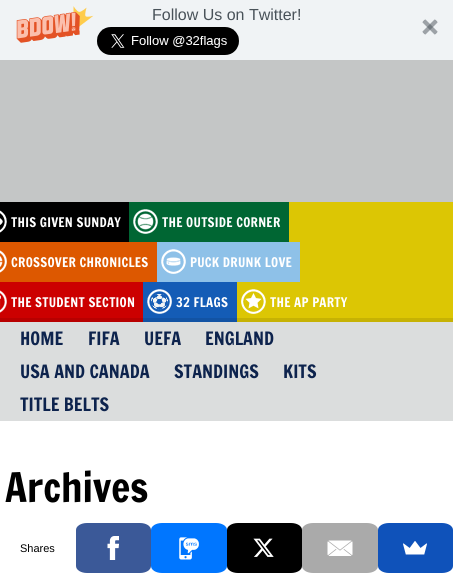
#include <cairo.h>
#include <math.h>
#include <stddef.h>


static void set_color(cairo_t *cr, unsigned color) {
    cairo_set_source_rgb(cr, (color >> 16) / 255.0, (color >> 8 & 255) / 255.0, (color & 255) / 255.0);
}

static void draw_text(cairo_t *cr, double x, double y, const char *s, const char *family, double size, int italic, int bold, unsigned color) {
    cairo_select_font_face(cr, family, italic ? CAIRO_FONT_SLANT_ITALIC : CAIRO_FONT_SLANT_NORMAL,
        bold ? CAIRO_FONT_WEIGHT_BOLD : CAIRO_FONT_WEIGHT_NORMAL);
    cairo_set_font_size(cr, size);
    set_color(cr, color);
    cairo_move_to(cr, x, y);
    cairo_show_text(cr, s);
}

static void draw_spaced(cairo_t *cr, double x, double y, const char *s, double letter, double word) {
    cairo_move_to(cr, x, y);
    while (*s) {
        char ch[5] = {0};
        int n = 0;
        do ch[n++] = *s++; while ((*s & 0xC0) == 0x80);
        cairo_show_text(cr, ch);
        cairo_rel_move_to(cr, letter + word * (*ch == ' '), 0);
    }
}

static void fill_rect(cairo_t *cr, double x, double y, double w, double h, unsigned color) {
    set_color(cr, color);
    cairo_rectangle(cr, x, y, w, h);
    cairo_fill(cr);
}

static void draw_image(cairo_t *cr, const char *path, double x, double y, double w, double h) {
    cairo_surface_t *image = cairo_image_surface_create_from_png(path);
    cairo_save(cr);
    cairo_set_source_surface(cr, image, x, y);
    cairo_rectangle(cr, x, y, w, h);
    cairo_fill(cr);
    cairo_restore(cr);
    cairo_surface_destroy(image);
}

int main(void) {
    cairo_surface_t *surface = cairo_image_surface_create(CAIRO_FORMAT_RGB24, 453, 573);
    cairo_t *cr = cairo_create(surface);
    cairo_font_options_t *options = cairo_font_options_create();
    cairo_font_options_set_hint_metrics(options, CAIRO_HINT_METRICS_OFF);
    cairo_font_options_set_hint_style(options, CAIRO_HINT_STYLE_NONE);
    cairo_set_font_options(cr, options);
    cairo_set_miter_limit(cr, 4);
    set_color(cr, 0xC4C6C6);
    cairo_paint(cr);
    fill_rect(cr, 0, 0, 453, 60, 0xF0F3F5);
    draw_image(cr, "assets/img1.png", 16, 6, 78, 37);
    draw_text(cr, 152, 20, "Follow Us on Twitter!", "Liberation Sans", 16, 0, 0, 0x495259);
    draw_image(cr, "assets/img2.png", 97, 27, 142, 28);
    draw_image(cr, "assets/img3.png", 422, 19, 16, 16);
    fill_rect(cr, 0, 421, 453, 152, 0xFFFFFF);
    fill_rect(cr, 237, 202, 216, 116, 0xDCC604);
    fill_rect(cr, 237, 318, 216, 4, 0xC6B204);
    fill_rect(cr, 0, 202, 129, 40, 0x000000);
    draw_image(cr, "assets/img4.png", 0, 210, 7, 23);
    cairo_select_font_face(cr, "Francois One", CAIRO_FONT_SLANT_NORMAL, CAIRO_FONT_WEIGHT_NORMAL);
    cairo_set_font_size(cr, 13);
    set_color(cr, 0xFFFFFF);
    draw_spaced(cr, 11, 227, "THIS GIVEN SUNDAY", 0.25, 0);
    fill_rect(cr, 129, 202, 160, 40, 0x006633);
    draw_image(cr, "assets/img5.png", 133, 209, 25, 25);
    set_color(cr, 0xFFFFFF);
    draw_spaced(cr, 162, 227, "THE OUTSIDE CORNER", 0.25, 0);
    fill_rect(cr, 0, 242, 157, 40, 0xDD5800);
    draw_image(cr, "assets/img6.png", 0, 250, 7, 23);
    set_color(cr, 0xFFFFFF);
    draw_spaced(cr, 11, 267, "CROSSOVER CHRONICLES", 0.25, 0);
    fill_rect(cr, 157, 242, 143, 40, 0x8EC1E8);
    draw_image(cr, "assets/img7.png", 161, 249, 25, 25);
    set_color(cr, 0xFFFFFF);
    draw_spaced(cr, 190, 267, "PUCK DRUNK LOVE", 0.25, 0);
    fill_rect(cr, 0, 282, 143, 36, 0xCC0000);
    fill_rect(cr, 0, 318, 143, 4, 0xB80000);
    draw_image(cr, "assets/img8.png", 0, 290, 7, 23);
    set_color(cr, 0xFFFFFF);
    draw_spaced(cr, 11, 307, "THE STUDENT SECTION", 0.25, 0);
    fill_rect(cr, 143, 282, 94, 36, 0x145CB6);
    fill_rect(cr, 143, 318, 94, 4, 0x1253A4);
    draw_image(cr, "assets/img9.png", 147, 289, 25, 25);
    set_color(cr, 0xFFFFFF);
    draw_spaced(cr, 176, 307, "32 FLAGS", 0.25, 0);
    draw_image(cr, "assets/img10.png", 241, 289, 25, 25);
    draw_spaced(cr, 270, 307, "THE AP PARTY", 0.25, 0);
    fill_rect(cr, 0, 322, 453, 99, 0xDBDDDD);
    draw_text(cr, 20, 345, "HOME", "Francois One", 18, 0, 0, 0x0D234D);
    draw_text(cr, 88, 345, "FIFA", "Francois One", 18, 0, 0, 0x0D234D);
    draw_text(cr, 144, 345, "UEFA", "Francois One", 18, 0, 0, 0x0D234D);
    draw_text(cr, 205, 345, "ENGLAND", "Francois One", 18, 0, 0, 0x0D234D);
    draw_text(cr, 20, 378, "USA AND CANADA", "Francois One", 18, 0, 0, 0x0D234D);
    draw_text(cr, 174, 378, "STANDINGS", "Francois One", 18, 0, 0, 0x0D234D);
    draw_text(cr, 283, 378, "KITS", "Francois One", 18, 0, 0, 0x0D234D);
    draw_text(cr, 20, 411, "TITLE BELTS", "Francois One", 18, 0, 0, 0x0D234D);
    draw_text(cr, 5, 502, "Archives", "Francois One", 40, 0, 0, 0x000000);
    draw_text(cr, 20, 552, "Shares", "Liberation Sans", 11, 0, 0, 0x000000);
    set_color(cr, 0x3B5998);
    cairo_new_path(cr);
    cairo_move_to(cr, 87, 523);
    cairo_line_to(cr, 140, 523);
    cairo_curve_to(cr, 146, 523, 151, 526, 151, 530);
    cairo_line_to(cr, 151, 566);
    cairo_curve_to(cr, 151, 570, 146, 573, 140, 573);
    cairo_line_to(cr, 87, 573);
    cairo_curve_to(cr, 81, 573, 76, 570, 76, 566);
    cairo_line_to(cr, 76, 530);
    cairo_curve_to(cr, 76, 526, 81, 523, 87, 523);
    cairo_close_path(cr);
    cairo_fill(cr);
    draw_image(cr, "assets/img11.png", 107, 536, 12, 24);
    set_color(cr, 0x0076FF);
    cairo_new_path(cr);
    cairo_move_to(cr, 162, 523);
    cairo_line_to(cr, 216, 523);
    cairo_curve_to(cr, 222, 523, 227, 526, 227, 530);
    cairo_line_to(cr, 227, 566);
    cairo_curve_to(cr, 227, 570, 222, 573, 216, 573);
    cairo_line_to(cr, 162, 573);
    cairo_curve_to(cr, 156, 573, 151, 570, 151, 566);
    cairo_line_to(cr, 151, 530);
    cairo_curve_to(cr, 151, 526, 156, 523, 162, 523);
    cairo_close_path(cr);
    cairo_fill(cr);
    draw_image(cr, "assets/img12.png", 179, 537, 20, 23);
    set_color(cr, 0x000000);
    cairo_new_path(cr);
    cairo_move_to(cr, 238, 523);
    cairo_line_to(cr, 291, 523);
    cairo_curve_to(cr, 297, 523, 302, 526, 302, 530);
    cairo_line_to(cr, 302, 566);
    cairo_curve_to(cr, 302, 570, 297, 573, 291, 573);
    cairo_line_to(cr, 238, 573);
    cairo_curve_to(cr, 232, 573, 227, 570, 227, 566);
    cairo_line_to(cr, 227, 530);
    cairo_curve_to(cr, 227, 526, 232, 523, 238, 523);
    cairo_close_path(cr);
    cairo_fill(cr);
    draw_image(cr, "assets/img13.png", 253, 538, 21, 19);
    set_color(cr, 0xAAAAAA);
    cairo_new_path(cr);
    cairo_move_to(cr, 313, 523);
    cairo_line_to(cr, 367, 523);
    cairo_curve_to(cr, 373, 523, 378, 526, 378, 530);
    cairo_line_to(cr, 378, 566);
    cairo_curve_to(cr, 378, 570, 373, 573, 367, 573);
    cairo_line_to(cr, 313, 573);
    cairo_curve_to(cr, 307, 573, 302, 570, 302, 566);
    cairo_line_to(cr, 302, 530);
    cairo_curve_to(cr, 302, 526, 307, 523, 313, 523);
    cairo_close_path(cr);
    cairo_fill(cr);
    draw_image(cr, "assets/img14.png", 327, 540, 26, 16);
    set_color(cr, 0x0F52BA);
    cairo_new_path(cr);
    cairo_move_to(cr, 389, 523);
    cairo_line_to(cr, 442, 523);
    cairo_curve_to(cr, 448, 523, 453, 526, 453, 530);
    cairo_line_to(cr, 453, 566);
    cairo_curve_to(cr, 453, 570, 448, 573, 442, 573);
    cairo_line_to(cr, 389, 573);
    cairo_curve_to(cr, 383, 573, 378, 570, 378, 566);
    cairo_line_to(cr, 378, 530);
    cairo_curve_to(cr, 378, 526, 383, 523, 389, 523);
    cairo_close_path(cr);
    cairo_fill(cr);
    draw_image(cr, "assets/img15.png", 403, 541, 24, 14);
    cairo_surface_write_to_png(surface, "output.png");
    cairo_font_options_destroy(options);
    cairo_destroy(cr);
    cairo_surface_destroy(surface);
    return 0;
}
